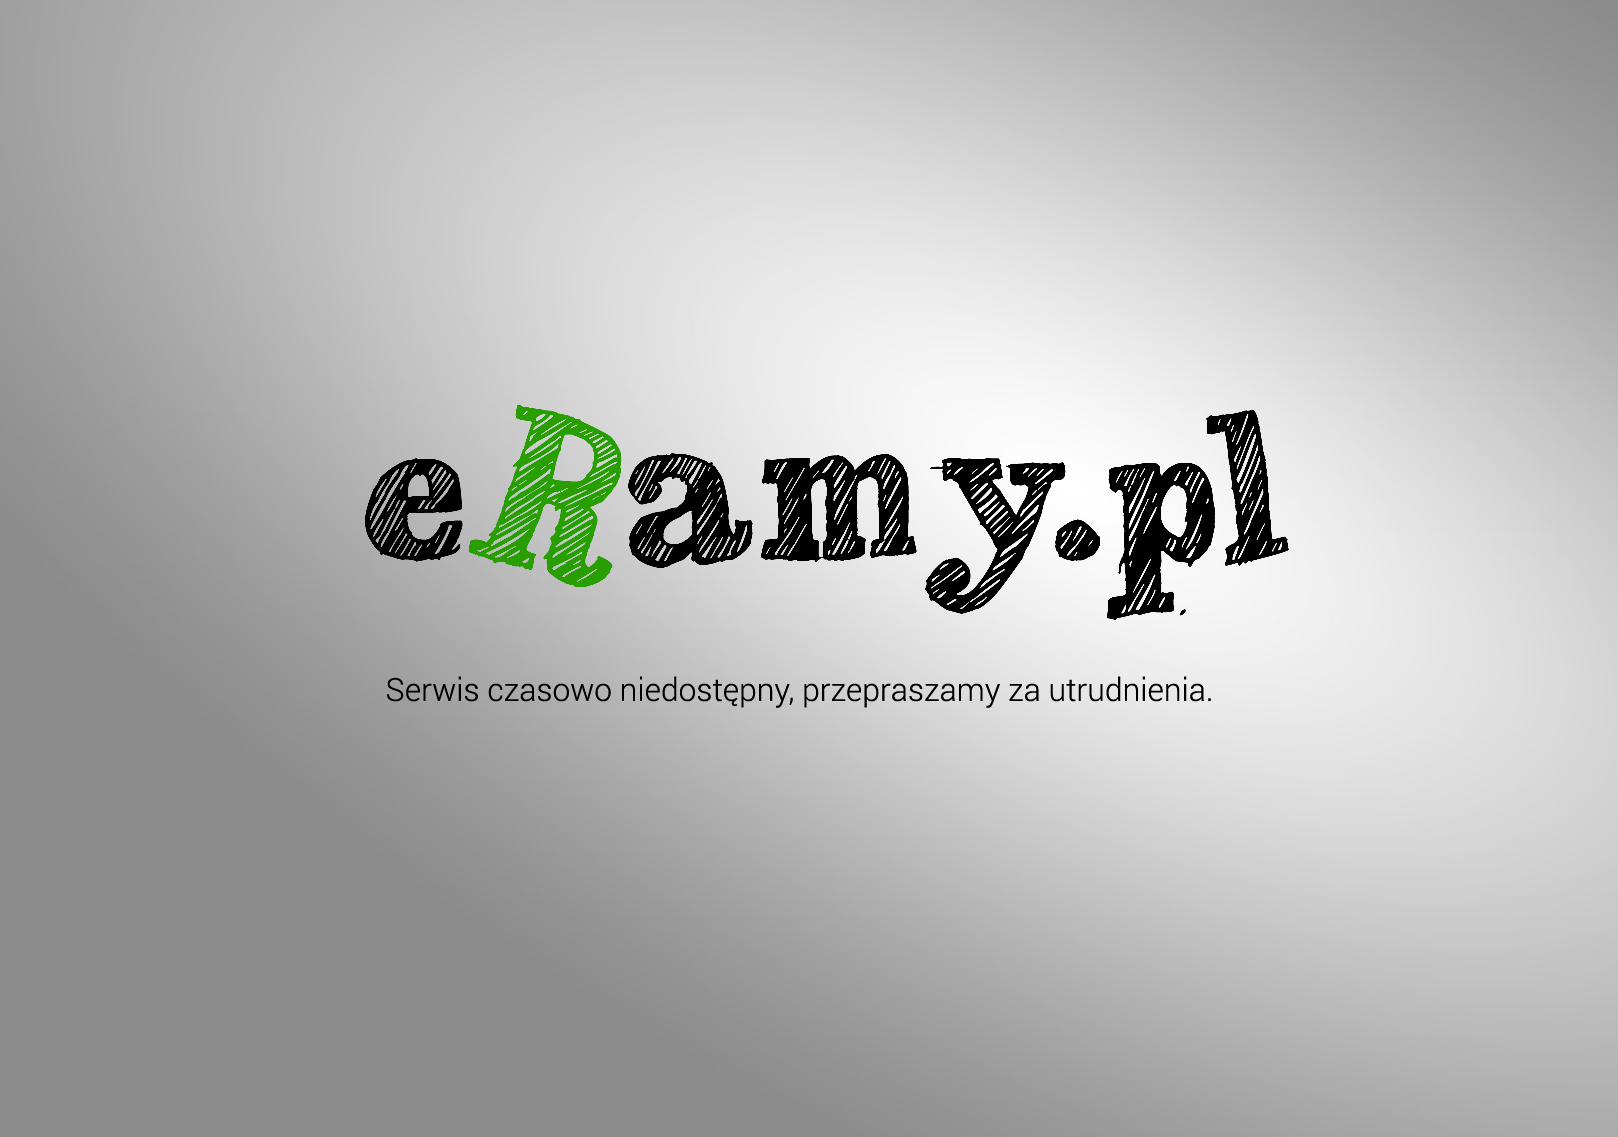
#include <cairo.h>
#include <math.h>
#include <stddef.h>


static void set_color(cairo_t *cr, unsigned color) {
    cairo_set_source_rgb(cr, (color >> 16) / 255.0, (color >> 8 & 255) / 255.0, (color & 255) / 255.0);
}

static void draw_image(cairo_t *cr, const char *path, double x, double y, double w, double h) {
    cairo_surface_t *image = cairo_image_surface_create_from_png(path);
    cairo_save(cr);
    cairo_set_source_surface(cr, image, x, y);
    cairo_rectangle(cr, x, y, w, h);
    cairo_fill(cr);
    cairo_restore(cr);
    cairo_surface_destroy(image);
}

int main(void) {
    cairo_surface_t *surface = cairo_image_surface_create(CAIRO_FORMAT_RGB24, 1618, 1137);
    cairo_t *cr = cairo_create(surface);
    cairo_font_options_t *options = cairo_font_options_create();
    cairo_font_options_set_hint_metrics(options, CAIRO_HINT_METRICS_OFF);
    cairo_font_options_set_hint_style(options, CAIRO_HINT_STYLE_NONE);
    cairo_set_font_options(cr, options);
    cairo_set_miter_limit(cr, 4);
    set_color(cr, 0xFFFFFF);
    cairo_paint(cr);
    draw_image(cr, "assets/img1.png", 0, 0, 1618, 1137);
    draw_image(cr, "assets/img2.png", 365, 404, 924, 304);
    cairo_surface_write_to_png(surface, "output.png");
    cairo_font_options_destroy(options);
    cairo_destroy(cr);
    cairo_surface_destroy(surface);
    return 0;
}
